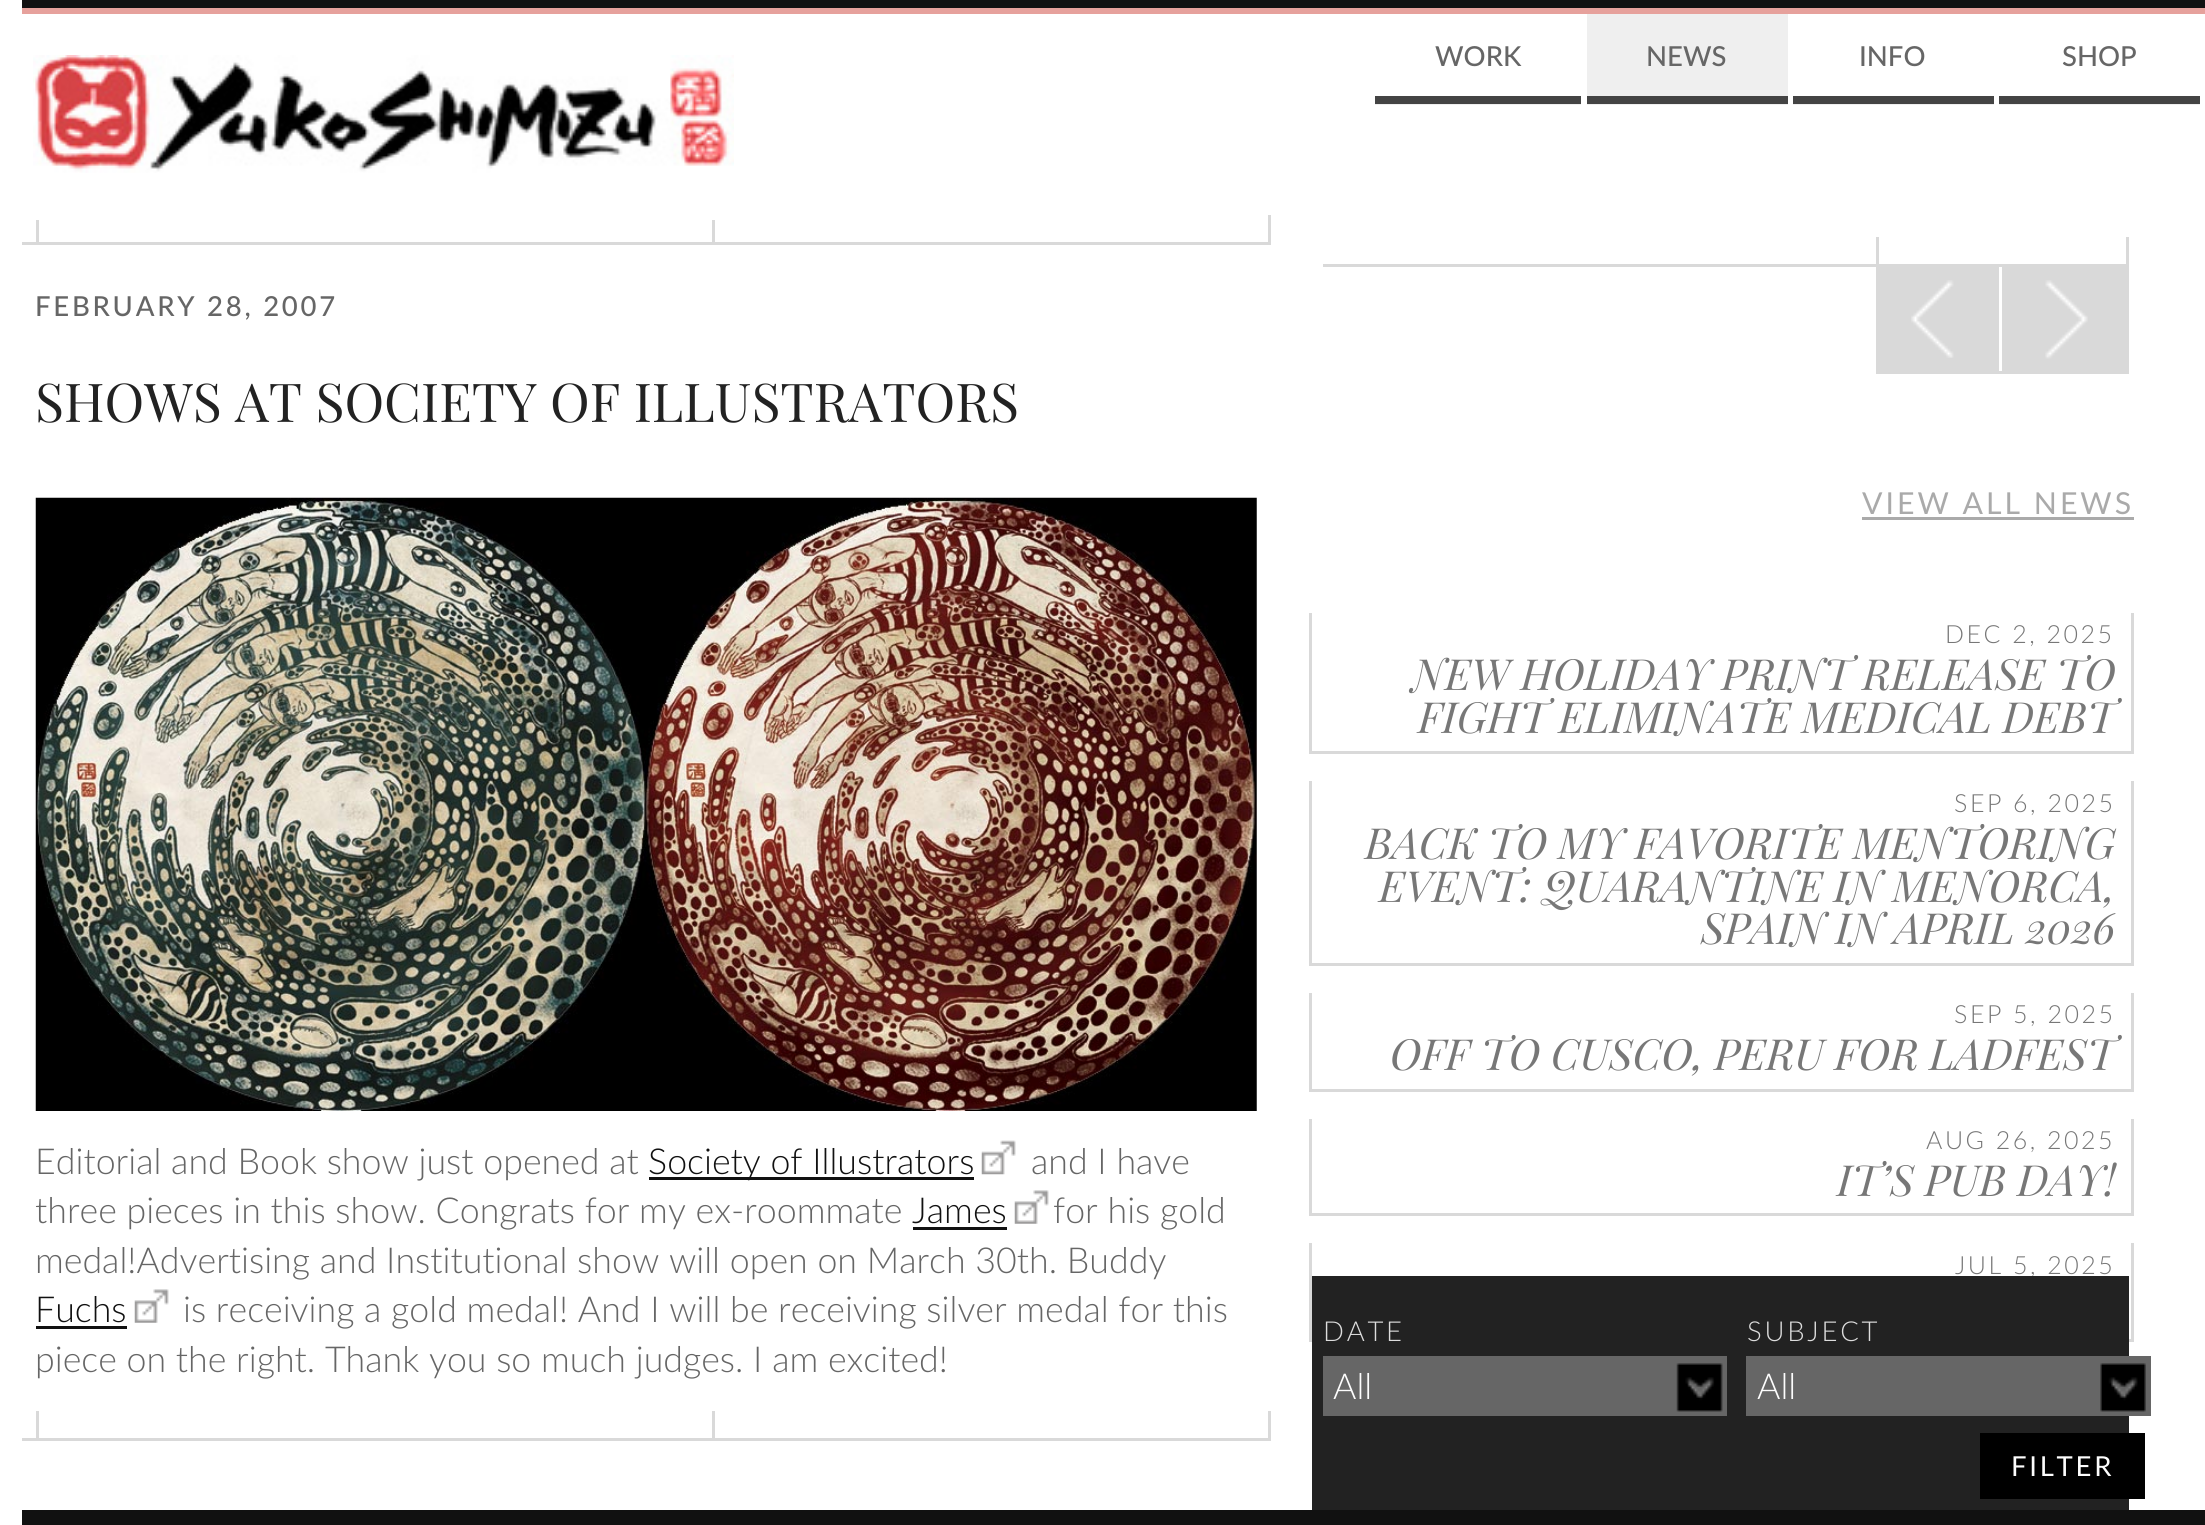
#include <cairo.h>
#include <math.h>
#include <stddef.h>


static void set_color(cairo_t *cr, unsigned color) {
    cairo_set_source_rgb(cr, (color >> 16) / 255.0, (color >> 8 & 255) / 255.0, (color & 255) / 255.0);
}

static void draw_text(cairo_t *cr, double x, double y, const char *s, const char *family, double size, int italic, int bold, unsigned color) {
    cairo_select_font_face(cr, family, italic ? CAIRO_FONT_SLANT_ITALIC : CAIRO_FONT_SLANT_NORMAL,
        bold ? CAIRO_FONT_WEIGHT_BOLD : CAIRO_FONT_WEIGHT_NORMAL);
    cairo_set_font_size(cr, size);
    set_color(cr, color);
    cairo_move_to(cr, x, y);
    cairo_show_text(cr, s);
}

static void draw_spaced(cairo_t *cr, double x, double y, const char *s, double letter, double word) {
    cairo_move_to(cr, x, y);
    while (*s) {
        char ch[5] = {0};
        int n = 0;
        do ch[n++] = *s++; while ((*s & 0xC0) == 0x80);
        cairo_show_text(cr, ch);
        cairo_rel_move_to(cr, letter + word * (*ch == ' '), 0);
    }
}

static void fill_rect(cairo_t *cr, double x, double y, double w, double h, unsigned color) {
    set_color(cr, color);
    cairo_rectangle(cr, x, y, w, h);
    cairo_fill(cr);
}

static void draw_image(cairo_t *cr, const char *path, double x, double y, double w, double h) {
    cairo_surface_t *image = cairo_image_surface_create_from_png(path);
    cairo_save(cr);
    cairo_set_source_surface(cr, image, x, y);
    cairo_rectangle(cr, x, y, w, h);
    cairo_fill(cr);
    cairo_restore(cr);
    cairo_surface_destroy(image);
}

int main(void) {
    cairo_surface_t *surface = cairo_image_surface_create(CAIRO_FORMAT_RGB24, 2205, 1525);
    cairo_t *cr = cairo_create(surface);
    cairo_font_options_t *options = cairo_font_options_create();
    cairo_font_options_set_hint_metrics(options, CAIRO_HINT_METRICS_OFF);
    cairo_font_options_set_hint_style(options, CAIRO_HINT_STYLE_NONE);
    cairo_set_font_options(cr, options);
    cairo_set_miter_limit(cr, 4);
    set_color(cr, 0xFFFFFF);
    cairo_paint(cr);
    fill_rect(cr, 22, 0, 2183, 8, 0x111111);
    fill_rect(cr, 22, 8, 2183, 6, 0xE6A19C);
    fill_rect(cr, 712, 215, 3, 27, 0xD9D9D9);
    fill_rect(cr, 36, 215, 3, 27, 0xD9D9D9);
    fill_rect(cr, 36, 215, 679, 5, 0xFFFFFF);
    draw_image(cr, "assets/img1.png", 33, 55, 701, 118);
    fill_rect(cr, 1375, 104, 206, 1, 0xEFEFEF);
    fill_rect(cr, 1375, 96, 206, 8, 0x444444);
    draw_text(cr, 1435, 66, "WORK", "Lato Medium", 27.5, 0, 0, 0x666666);
    fill_rect(cr, 1587, 14, 201, 91, 0xEFEFEF);
    fill_rect(cr, 1587, 96, 201, 8, 0x444444);
    draw_text(cr, 1646, 66, "NEWS", "Lato Medium", 27.5, 0, 0, 0x666666);
    fill_rect(cr, 1793, 104, 201, 1, 0xEFEFEF);
    fill_rect(cr, 1793, 96, 201, 8, 0x444444);
    draw_text(cr, 1859, 66, "INFO", "Lato Medium", 27.5, 0, 0, 0x666666);
    fill_rect(cr, 1999, 104, 201, 1, 0xEFEFEF);
    fill_rect(cr, 1999, 96, 201, 8, 0x444444);
    draw_text(cr, 2062, 66, "SHOP", "Lato Medium", 27.5, 0, 0, 0x666666);
    fill_rect(cr, 22, 242, 1249, 3, 0xD9D9D9);
    fill_rect(cr, 1268, 215, 3, 27, 0xD9D9D9);
    set_color(cr, 0x666666);
    draw_spaced(cr, 35, 316, "FEBRUARY 28, 2007", 2.75, 0);
    draw_text(cr, 35, 422, "SHOWS AT SOCIETY OF ILLUSTRATORS", "Playfair Display", 53.6, 0, 0, 0x222222);
    draw_image(cr, "assets/img2.png", 35, 497, 1222, 614);
    draw_text(cr, 35, 1174, "Editorial and Book show just opened at", "Lato Light", 35.75, 0, 0, 0x666666);
    fill_rect(cr, 649, 1177, 325, 3, 0x111111);
    draw_text(cr, 648, 1174, "Society of Illustrators", "Lato Light", 35.75, 0, 0, 0x111111);
    draw_image(cr, "assets/img3.png", 981, 1140, 35, 35);
    draw_text(cr, 1031, 1174, "and I have", "Lato Light", 35.75, 0, 0, 0x666666);
    draw_text(cr, 35, 1223, "three pieces in this show. Congrats for my ex-roommate", "Lato Light", 35.75, 0, 0, 0x666666);
    draw_text(cr, 912, 1223, "James", "Lato Light", 35.75, 0, 0, 0x111111);
    fill_rect(cr, 913, 1227, 94, 3, 0x111111);
    draw_image(cr, "assets/img4.png", 1014, 1190, 35, 34);
    draw_text(cr, 1053, 1223, "for his gold", "Lato Light", 35.75, 0, 0, 0x666666);
    draw_text(cr, 35, 1273, "medal!Advertising and Institutional show will open on March 30th. Buddy", "Lato Light", 35.75, 0, 0, 0x666666);
    draw_text(cr, 35, 1322, "Fuchs", "Lato Light", 35.75, 0, 0, 0x111111);
    fill_rect(cr, 36, 1326, 91, 3, 0x111111);
    draw_image(cr, "assets/img5.png", 134, 1289, 35, 34);
    draw_text(cr, 183, 1322, "is receiving a gold medal! And I will be receiving silver medal for this", "Lato Light", 35.75, 0, 0, 0x666666);
    draw_text(cr, 35, 1372, "piece on the right. Thank you so much judges. I am excited!", "Lato Light", 35.75, 0, 0, 0x666666);
    fill_rect(cr, 22, 1438, 1249, 3, 0xD9D9D9);
    fill_rect(cr, 712, 1411, 3, 27, 0xD9D9D9);
    fill_rect(cr, 36, 1411, 3, 27, 0xD9D9D9);
    fill_rect(cr, 1268, 1411, 3, 27, 0xD9D9D9);
    fill_rect(cr, 1323, 264, 553, 3, 0xD9D9D9);
    fill_rect(cr, 2126, 237, 3, 137, 0xD9D9D9);
    fill_rect(cr, 1876, 264, 253, 3, 0xD9D9D9);
    fill_rect(cr, 1876, 237, 3, 30, 0xD9D9D9);
    fill_rect(cr, 1876, 371, 253, 3, 0xD9D9D9);
    fill_rect(cr, 1876, 267, 3, 107, 0xD9D9D9);
    fill_rect(cr, 1879, 267, 120, 104, 0xD9D9D9);
    draw_image(cr, "assets/img6.png", 1911, 280, 43, 78);
    fill_rect(cr, 2002, 267, 124, 104, 0xD9D9D9);
    draw_image(cr, "assets/img7.png", 2045, 280, 43, 79);
    cairo_select_font_face(cr, "Lato", CAIRO_FONT_SLANT_NORMAL, CAIRO_FONT_WEIGHT_NORMAL);
    cairo_set_font_size(cr, 30.25);
    set_color(cr, 0xAAAAAA);
    draw_spaced(cr, 1862, 514, "VIEW ALL NEWS", 3, 0);
    fill_rect(cr, 1862, 517, 272, 3, 0xAAAAAA);
    fill_rect(cr, 1309, 751, 825, 3, 0xD9D9D9);
    fill_rect(cr, 2131, 613, 3, 138, 0xD9D9D9);
    fill_rect(cr, 1309, 613, 3, 138, 0xD9D9D9);
    cairo_select_font_face(cr, "Lato Light", CAIRO_FONT_SLANT_NORMAL, CAIRO_FONT_WEIGHT_NORMAL);
    cairo_set_font_size(cr, 25);
    set_color(cr, 0x777777);
    draw_spaced(cr, 1945, 643, "DEC 2, 2025", 2.5, 0);
    draw_text(cr, 1412, 690, "NEW HOLIDAY PRINT RELEASE TO", "Playfair Display", 42.9, 1, 0, 0x777777);
    draw_text(cr, 1418, 733, "FIGHT ELIMINATE MEDICAL DEBT", "Playfair Display", 42.9, 1, 0, 0x777777);
    fill_rect(cr, 1309, 963, 825, 3, 0xD9D9D9);
    fill_rect(cr, 2131, 781, 3, 182, 0xD9D9D9);
    fill_rect(cr, 1309, 781, 3, 182, 0xD9D9D9);
    cairo_select_font_face(cr, "Lato Light", CAIRO_FONT_SLANT_NORMAL, CAIRO_FONT_WEIGHT_NORMAL);
    cairo_set_font_size(cr, 25);
    set_color(cr, 0x777777);
    draw_spaced(cr, 1954, 812, "SEP 6, 2025", 2.5, 0);
    draw_text(cr, 1365, 859, "BACK TO MY FAVORITE MENTORING", "Playfair Display", 42.9, 1, 0, 0x777777);
    draw_text(cr, 1379, 902, "EVENT: QUARANTINE IN MENORCA,", "Playfair Display", 42.9, 1, 0, 0x777777);
    draw_text(cr, 1701, 944, "SPAIN IN APRIL 2026", "Playfair Display", 42.9, 1, 0, 0x777777);
    fill_rect(cr, 1309, 1089, 825, 3, 0xD9D9D9);
    fill_rect(cr, 2131, 993, 3, 96, 0xD9D9D9);
    fill_rect(cr, 1309, 993, 3, 96, 0xD9D9D9);
    cairo_select_font_face(cr, "Lato Light", CAIRO_FONT_SLANT_NORMAL, CAIRO_FONT_WEIGHT_NORMAL);
    cairo_set_font_size(cr, 25);
    set_color(cr, 0x777777);
    draw_spaced(cr, 1954, 1023, "SEP 5, 2025", 2.5, 0);
    draw_text(cr, 1390, 1070, "OFF TO CUSCO, PERU FOR LADFEST", "Playfair Display", 42.9, 1, 0, 0x777777);
    fill_rect(cr, 1309, 1213, 825, 3, 0xD9D9D9);
    fill_rect(cr, 2131, 1119, 3, 94, 0xD9D9D9);
    fill_rect(cr, 1309, 1119, 3, 94, 0xD9D9D9);
    cairo_select_font_face(cr, "Lato Light", CAIRO_FONT_SLANT_NORMAL, CAIRO_FONT_WEIGHT_NORMAL);
    cairo_set_font_size(cr, 25);
    set_color(cr, 0x777777);
    draw_spaced(cr, 1926, 1149, "AUG 26, 2025", 2.5, 0);
    draw_text(cr, 1837, 1196, "IT’S PUB DAY!", "Playfair Display", 42.9, 1, 0, 0x777777);
    fill_rect(cr, 1309, 1339, 825, 3, 0xD9D9D9);
    fill_rect(cr, 2131, 1243, 3, 96, 0xD9D9D9);
    fill_rect(cr, 1309, 1243, 3, 96, 0xD9D9D9);
    cairo_select_font_face(cr, "Lato Light", CAIRO_FONT_SLANT_NORMAL, CAIRO_FONT_WEIGHT_NORMAL);
    cairo_set_font_size(cr, 25);
    set_color(cr, 0x777777);
    draw_spaced(cr, 1955, 1274, "JUL 5, 2025", 2.5, 0);
    fill_rect(cr, 1312, 1276, 817, 234, 0x222222);
    cairo_set_font_size(cr, 27.5);
    set_color(cr, 0xDDDDDD);
    draw_spaced(cr, 1323, 1341, "DATE", 2.75, 0);
    fill_rect(cr, 1323, 1356, 404, 60, 0x666666);
    draw_image(cr, "assets/img8.png", 1676, 1363, 47, 49);
    draw_text(cr, 1333, 1399, "All", "Lato Light", 35.75, 0, 0, 0xFDFDFD);
    cairo_set_font_size(cr, 27.5);
    set_color(cr, 0xDDDDDD);
    draw_spaced(cr, 1747, 1341, "SUBJECT", 2.75, 0);
    fill_rect(cr, 1746, 1356, 405, 60, 0x666666);
    draw_image(cr, "assets/img9.png", 2100, 1363, 46, 49);
    draw_text(cr, 1757, 1399, "All", "Lato Light", 35.75, 0, 0, 0xFDFDFD);
    fill_rect(cr, 1980, 1433, 165, 66, 0x000000);
    cairo_select_font_face(cr, "Lato", CAIRO_FONT_SLANT_NORMAL, CAIRO_FONT_WEIGHT_NORMAL);
    cairo_set_font_size(cr, 27.5);
    set_color(cr, 0xFDFDFD);
    draw_spaced(cr, 2011, 1476, "FILTER", 2.75, 0);
    fill_rect(cr, 22, 1510, 2183, 15, 0x111111);
    cairo_surface_write_to_png(surface, "output.png");
    cairo_font_options_destroy(options);
    cairo_destroy(cr);
    cairo_surface_destroy(surface);
    return 0;
}
